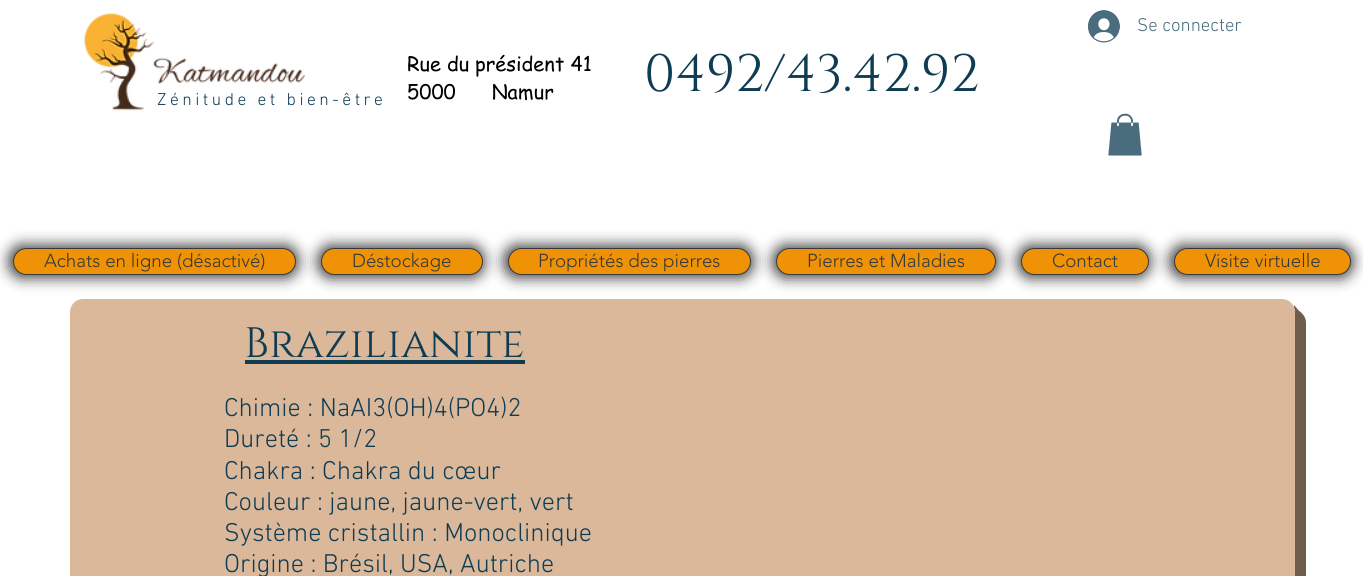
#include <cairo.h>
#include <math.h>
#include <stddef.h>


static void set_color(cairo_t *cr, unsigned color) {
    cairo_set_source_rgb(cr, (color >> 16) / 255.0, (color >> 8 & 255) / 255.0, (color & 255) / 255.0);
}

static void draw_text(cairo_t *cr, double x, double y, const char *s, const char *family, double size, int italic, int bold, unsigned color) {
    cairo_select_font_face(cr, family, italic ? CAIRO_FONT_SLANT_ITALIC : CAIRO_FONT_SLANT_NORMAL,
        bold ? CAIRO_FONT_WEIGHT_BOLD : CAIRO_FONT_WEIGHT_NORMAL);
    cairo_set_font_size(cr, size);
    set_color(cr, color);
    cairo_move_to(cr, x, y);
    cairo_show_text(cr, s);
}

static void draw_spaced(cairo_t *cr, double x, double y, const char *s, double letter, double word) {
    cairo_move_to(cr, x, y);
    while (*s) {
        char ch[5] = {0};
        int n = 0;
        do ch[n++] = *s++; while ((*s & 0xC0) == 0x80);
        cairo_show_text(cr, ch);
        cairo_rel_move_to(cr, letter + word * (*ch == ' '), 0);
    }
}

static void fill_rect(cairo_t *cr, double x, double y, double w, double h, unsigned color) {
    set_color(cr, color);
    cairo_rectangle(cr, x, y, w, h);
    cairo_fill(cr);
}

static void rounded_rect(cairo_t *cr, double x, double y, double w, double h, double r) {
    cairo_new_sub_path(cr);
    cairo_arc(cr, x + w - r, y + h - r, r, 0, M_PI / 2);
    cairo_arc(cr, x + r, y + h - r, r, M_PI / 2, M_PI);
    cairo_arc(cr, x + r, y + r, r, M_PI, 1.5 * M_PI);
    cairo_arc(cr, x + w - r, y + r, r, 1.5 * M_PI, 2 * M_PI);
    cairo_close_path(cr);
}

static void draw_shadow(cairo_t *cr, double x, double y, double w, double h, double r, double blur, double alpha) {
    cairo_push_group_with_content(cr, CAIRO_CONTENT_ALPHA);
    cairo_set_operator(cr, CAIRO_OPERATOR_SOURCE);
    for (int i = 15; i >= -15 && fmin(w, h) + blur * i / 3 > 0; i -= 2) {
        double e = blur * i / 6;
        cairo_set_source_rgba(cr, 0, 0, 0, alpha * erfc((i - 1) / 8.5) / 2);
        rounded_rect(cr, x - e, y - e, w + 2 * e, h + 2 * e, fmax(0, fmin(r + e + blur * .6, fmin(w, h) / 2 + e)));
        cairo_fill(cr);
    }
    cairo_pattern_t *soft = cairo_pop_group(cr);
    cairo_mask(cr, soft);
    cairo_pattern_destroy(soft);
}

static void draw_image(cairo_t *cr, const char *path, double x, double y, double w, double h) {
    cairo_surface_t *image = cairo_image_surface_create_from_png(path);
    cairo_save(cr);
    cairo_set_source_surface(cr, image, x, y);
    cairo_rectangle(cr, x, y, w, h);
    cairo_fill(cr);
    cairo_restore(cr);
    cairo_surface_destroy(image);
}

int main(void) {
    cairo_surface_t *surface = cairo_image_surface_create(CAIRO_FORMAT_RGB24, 1363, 576);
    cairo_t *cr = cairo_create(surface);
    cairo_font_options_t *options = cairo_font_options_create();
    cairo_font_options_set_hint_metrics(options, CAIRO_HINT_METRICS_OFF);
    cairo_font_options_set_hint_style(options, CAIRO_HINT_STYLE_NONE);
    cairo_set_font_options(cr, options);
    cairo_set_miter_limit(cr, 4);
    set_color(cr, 0xFFFFFF);
    cairo_paint(cr);
    cairo_select_font_face(cr, "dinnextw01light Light", CAIRO_FONT_SLANT_NORMAL, CAIRO_FONT_WEIGHT_NORMAL);
    cairo_set_font_size(cr, 17.5);
    set_color(cr, 0x0E3C53);
    draw_spaced(cr, 157, 105, "Zénitude et bien-être", 3.5, 0);
    draw_image(cr, "assets/img1.png", 83, 13, 223, 98);
    draw_image(cr, "assets/img2.png", 1088, 10, 32, 33);
    draw_text(cr, 1137, 31, "Se connecter", "dinnextw01light Light", 18.75, 0, 0, 0x4A6D7E);
    draw_text(cr, 407, 71, "Rue du président 41", "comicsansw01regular", 20, 0, 0, 0x000000);
    draw_text(cr, 407, 99, "5000      Namur", "comicsansw01regular", 20, 0, 0, 0x000000);
    draw_text(cr, 644, 91, "0492/43.42.92", "Cinzel", 52.5, 0, 0, 0x0E3C53);
    draw_image(cr, "assets/img3.png", 1108, 113, 34, 43);
    set_color(cr, 0x000000);
    draw_shadow(cr, 9, 245, 289, 33, 16.5, 7, 0.74);
    set_color(cr, 0xF09205);
    rounded_rect(cr, 13.5, 248.5, 282, 26, 13);
    cairo_fill_preserve(cr);
    set_color(cr, 0x383838);
    cairo_set_line_width(cr, 1);
    cairo_stroke(cr);
    draw_text(cr, 44, 267, "Achats en ligne (désactivé)", "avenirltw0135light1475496 Light", 18.75, 0, 0, 0x383838);
    set_color(cr, 0x000000);
    draw_shadow(cr, 318, 245, 166, 33, 16.5, 7, 0.74);
    set_color(cr, 0xF09205);
    rounded_rect(cr, 321.5, 248.5, 161, 26, 13);
    cairo_fill_preserve(cr);
    set_color(cr, 0x383838);
    cairo_stroke(cr);
    draw_text(cr, 352, 267, "Déstockage", "avenirltw0135light1475496 Light", 18.75, 0, 0, 0x383838);
    set_color(cr, 0x000000);
    draw_shadow(cr, 504, 245, 249, 33, 16.5, 7, 0.74);
    set_color(cr, 0xF09205);
    rounded_rect(cr, 508.5, 248.5, 242, 26, 13);
    cairo_fill_preserve(cr);
    set_color(cr, 0x383838);
    cairo_stroke(cr);
    draw_text(cr, 538, 267, "Propriétés des pierres", "avenirltw0135light1475496 Light", 18.75, 0, 0, 0x383838);
    set_color(cr, 0x000000);
    draw_shadow(cr, 773, 245, 225, 33, 16.5, 7, 0.74);
    set_color(cr, 0xF09205);
    rounded_rect(cr, 776.5, 248.5, 219, 26, 13);
    cairo_fill_preserve(cr);
    set_color(cr, 0x383838);
    cairo_stroke(cr);
    draw_text(cr, 807, 267, "Pierres et Maladies", "avenirltw0135light1475496 Light", 18.75, 0, 0, 0x383838);
    set_color(cr, 0x000000);
    draw_shadow(cr, 1018, 245, 132, 33, 16.5, 7, 0.74);
    set_color(cr, 0xF09205);
    rounded_rect(cr, 1021.5, 248.5, 127, 26, 13);
    cairo_fill_preserve(cr);
    set_color(cr, 0x383838);
    cairo_stroke(cr);
    draw_text(cr, 1052, 267, "Contact", "avenirltw0135light1475496 Light", 18.75, 0, 0, 0x383838);
    set_color(cr, 0x000000);
    draw_shadow(cr, 1170, 245, 183, 33, 16.5, 7, 0.74);
    set_color(cr, 0xF09205);
    rounded_rect(cr, 1174.5, 248.5, 176, 26, 13);
    cairo_fill_preserve(cr);
    set_color(cr, 0x383838);
    cairo_stroke(cr);
    draw_text(cr, 1205, 267, "Visite virtuelle", "avenirltw0135light1475496 Light", 18.75, 0, 0, 0x383838);
    set_color(cr, 0x6E5C4D);
    cairo_new_path(cr);
    cairo_move_to(cr, 81, 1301);
    cairo_curve_to(cr, 82, 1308, 87, 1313, 94, 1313);
    cairo_line_to(cr, 1293, 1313);
    cairo_curve_to(cr, 1300, 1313, 1306, 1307, 1306, 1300);
    cairo_line_to(cr, 1306, 323);
    cairo_curve_to(cr, 1306, 316, 1301, 311, 1295, 310);
    cairo_line_to(cr, 1295, 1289);
    cairo_curve_to(cr, 1295, 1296, 1289, 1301, 1282, 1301);
    cairo_close_path(cr);
    cairo_fill(cr);
    cairo_new_path(cr);
    cairo_move_to(cr, 80, 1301);
    cairo_curve_to(cr, 81, 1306, 86, 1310, 92, 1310);
    cairo_line_to(cr, 1291, 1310);
    cairo_curve_to(cr, 1298, 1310, 1304, 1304, 1304, 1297);
    cairo_line_to(cr, 1304, 321);
    cairo_curve_to(cr, 1304, 315, 1300, 310, 1295, 309);
    cairo_line_to(cr, 1295, 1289);
    cairo_curve_to(cr, 1295, 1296, 1289, 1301, 1282, 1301);
    cairo_close_path(cr);
    cairo_fill(cr);
    cairo_new_path(cr);
    cairo_move_to(cr, 77, 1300);
    cairo_curve_to(cr, 79, 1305, 84, 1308, 89, 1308);
    cairo_line_to(cr, 1288, 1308);
    cairo_curve_to(cr, 1295, 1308, 1301, 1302, 1301, 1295);
    cairo_line_to(cr, 1301, 318);
    cairo_curve_to(cr, 1301, 313, 1298, 309, 1294, 306);
    cairo_line_to(cr, 1295, 311);
    cairo_line_to(cr, 1295, 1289);
    cairo_curve_to(cr, 1295, 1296, 1289, 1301, 1282, 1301);
    cairo_line_to(cr, 82, 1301);
    cairo_curve_to(cr, 81, 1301, 79, 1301, 77, 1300);
    cairo_close_path(cr);
    cairo_fill(cr);
    cairo_new_path(cr);
    cairo_move_to(cr, 77, 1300);
    cairo_curve_to(cr, 79, 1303, 83, 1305, 87, 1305);
    cairo_line_to(cr, 1286, 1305);
    cairo_curve_to(cr, 1293, 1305, 1299, 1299, 1299, 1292);
    cairo_line_to(cr, 1299, 316);
    cairo_curve_to(cr, 1299, 312, 1297, 308, 1294, 305);
    cairo_curve_to(cr, 1294, 307, 1295, 309, 1295, 311);
    cairo_line_to(cr, 1295, 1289);
    cairo_curve_to(cr, 1295, 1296, 1289, 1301, 1282, 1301);
    cairo_line_to(cr, 82, 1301);
    cairo_curve_to(cr, 80, 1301, 78, 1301, 77, 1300);
    cairo_close_path(cr);
    cairo_fill(cr);
    cairo_new_path(cr);
    cairo_move_to(cr, 73, 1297);
    cairo_curve_to(cr, 75, 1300, 79, 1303, 84, 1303);
    cairo_line_to(cr, 1283, 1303);
    cairo_curve_to(cr, 1290, 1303, 1296, 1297, 1296, 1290);
    cairo_line_to(cr, 1296, 313);
    cairo_curve_to(cr, 1296, 310, 1295, 308, 1294, 305);
    cairo_curve_to(cr, 1294, 307, 1295, 309, 1295, 311);
    cairo_line_to(cr, 1295, 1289);
    cairo_curve_to(cr, 1295, 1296, 1289, 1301, 1282, 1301);
    cairo_line_to(cr, 82, 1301);
    cairo_curve_to(cr, 79, 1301, 75, 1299, 73, 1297);
    cairo_close_path(cr);
    cairo_fill(cr);
    set_color(cr, 0xDBB89A);
    rounded_rect(cr, 70, 299, 1225, 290, 13);
    cairo_fill(cr);
    draw_text(cr, 244, 357, "Brazilianite", "Cinzel", 42.5, 0, 0, 0x0E3C53);
    fill_rect(cr, 245, 360, 280, 4, 0x0E3C53);
    draw_text(cr, 224, 416, "Chimie : NaAI3(OH)4(PO4)2", "dinnextw01light Light", 26.25, 0, 0, 0x0E3C53);
    draw_text(cr, 224, 447, "Dureté : 5 1/2", "dinnextw01light Light", 26.25, 0, 0, 0x0E3C53);
    draw_text(cr, 224, 479, "Chakra : Chakra du cœur", "dinnextw01light Light", 26.25, 0, 0, 0x0E3C53);
    draw_text(cr, 224, 510, "Couleur : jaune, jaune-vert, vert", "dinnextw01light Light", 26.25, 0, 0, 0x0E3C53);
    draw_text(cr, 224, 541, "Système cristallin : Monoclinique", "dinnextw01light Light", 26.25, 0, 0, 0x0E3C53);
    draw_text(cr, 224, 572, "Origine : Brésil, USA, Autriche", "dinnextw01light Light", 26.25, 0, 0, 0x0E3C53);
    cairo_surface_write_to_png(surface, "output.png");
    cairo_font_options_destroy(options);
    cairo_destroy(cr);
    cairo_surface_destroy(surface);
    return 0;
}
